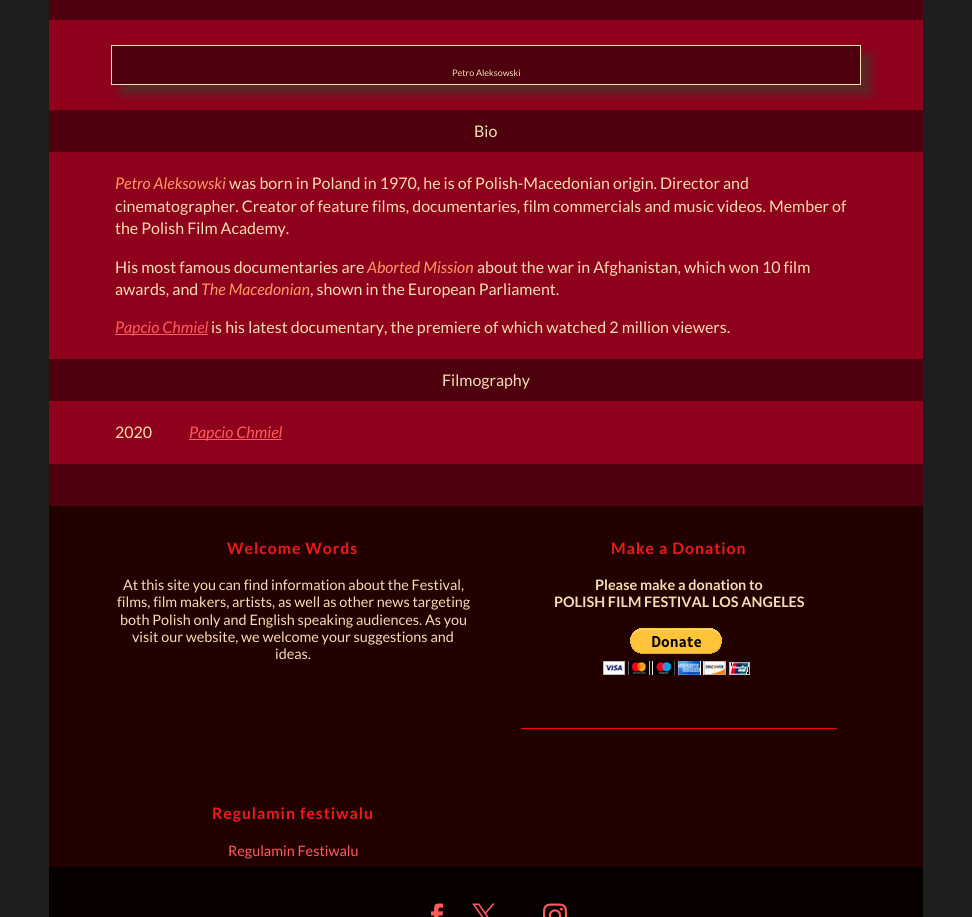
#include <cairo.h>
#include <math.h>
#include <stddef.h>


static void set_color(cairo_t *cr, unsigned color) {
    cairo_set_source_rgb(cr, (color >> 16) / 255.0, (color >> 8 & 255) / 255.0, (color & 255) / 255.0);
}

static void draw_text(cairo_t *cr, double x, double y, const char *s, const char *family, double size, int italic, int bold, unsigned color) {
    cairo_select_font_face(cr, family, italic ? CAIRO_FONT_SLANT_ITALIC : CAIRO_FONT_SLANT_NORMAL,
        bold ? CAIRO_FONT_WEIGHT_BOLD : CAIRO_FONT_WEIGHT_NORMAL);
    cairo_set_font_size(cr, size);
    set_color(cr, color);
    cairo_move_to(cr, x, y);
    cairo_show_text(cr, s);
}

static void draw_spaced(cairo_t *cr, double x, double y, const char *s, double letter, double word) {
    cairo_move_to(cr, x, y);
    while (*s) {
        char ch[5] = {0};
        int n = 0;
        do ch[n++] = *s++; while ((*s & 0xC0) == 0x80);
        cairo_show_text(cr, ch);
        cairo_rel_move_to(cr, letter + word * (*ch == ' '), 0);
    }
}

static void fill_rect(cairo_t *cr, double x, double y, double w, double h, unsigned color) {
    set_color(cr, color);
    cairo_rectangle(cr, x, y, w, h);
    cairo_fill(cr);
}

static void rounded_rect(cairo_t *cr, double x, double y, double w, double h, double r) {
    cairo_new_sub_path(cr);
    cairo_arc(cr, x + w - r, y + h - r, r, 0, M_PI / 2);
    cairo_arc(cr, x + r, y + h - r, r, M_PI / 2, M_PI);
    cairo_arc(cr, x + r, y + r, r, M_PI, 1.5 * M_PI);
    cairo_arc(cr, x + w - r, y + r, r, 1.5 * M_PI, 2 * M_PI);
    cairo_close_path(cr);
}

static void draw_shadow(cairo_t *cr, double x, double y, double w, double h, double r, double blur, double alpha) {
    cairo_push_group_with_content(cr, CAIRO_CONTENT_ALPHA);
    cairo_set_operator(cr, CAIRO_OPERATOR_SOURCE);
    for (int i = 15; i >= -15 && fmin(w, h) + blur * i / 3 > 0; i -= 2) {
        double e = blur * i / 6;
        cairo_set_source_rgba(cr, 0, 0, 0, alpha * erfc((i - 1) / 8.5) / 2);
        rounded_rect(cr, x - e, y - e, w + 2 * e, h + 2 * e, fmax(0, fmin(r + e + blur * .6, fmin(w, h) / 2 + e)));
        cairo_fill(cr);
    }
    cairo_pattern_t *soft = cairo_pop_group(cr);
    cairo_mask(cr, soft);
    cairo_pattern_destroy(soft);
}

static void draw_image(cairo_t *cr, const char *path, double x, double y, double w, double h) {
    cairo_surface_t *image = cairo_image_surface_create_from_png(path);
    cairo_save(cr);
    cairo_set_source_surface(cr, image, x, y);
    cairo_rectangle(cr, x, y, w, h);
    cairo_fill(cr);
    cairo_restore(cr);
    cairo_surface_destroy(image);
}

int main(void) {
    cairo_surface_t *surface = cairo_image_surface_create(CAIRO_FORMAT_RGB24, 972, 917);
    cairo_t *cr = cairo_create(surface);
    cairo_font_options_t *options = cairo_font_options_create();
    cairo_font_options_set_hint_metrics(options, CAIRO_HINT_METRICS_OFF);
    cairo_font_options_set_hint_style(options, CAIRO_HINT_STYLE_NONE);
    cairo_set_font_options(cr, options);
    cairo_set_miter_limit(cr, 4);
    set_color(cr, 0x1E1E1E);
    cairo_paint(cr);
    fill_rect(cr, 49, 0, 874, 401, 0x4E000E);
    fill_rect(cr, 49, 20, 874, 90, 0x8F001C);
    set_color(cr, 0x592823);
    draw_shadow(cr, 121, 55, 750, 40, 0, 5, 1);
    set_color(cr, 0x4E000E);
    cairo_rectangle(cr, 111.5, 45.5, 749, 39);
    cairo_fill_preserve(cr);
    set_color(cr, 0xF5DEB3);
    cairo_set_line_width(cr, 1);
    cairo_stroke(cr);
    draw_text(cr, 452, 76, "Petro Aleksowski", "Lato", 9, 0, 0, 0xF5DEB3);
    draw_text(cr, 474, 137, "Bio", "Lato", 16, 0, 0, 0xF5DEB3);
    fill_rect(cr, 49, 152, 874, 207, 0x8F001C);
    draw_text(cr, 115, 189, "Petro Aleksowski", "Lato", 16, 1, 0, 0xFF9966);
    draw_text(cr, 229, 189, "was born in Poland in 1970, he is of Polish-Macedonian origin. Director and", "Lato", 16, 0, 0, 0xF5DEB3);
    draw_text(cr, 115, 212, "cinematographer. Creator of feature films, documentaries, film commercials and music videos. Member of", "Lato", 16, 0, 0, 0xF5DEB3);
    draw_text(cr, 115, 234, "the Polish Film Academy.", "Lato", 16, 0, 0, 0xF5DEB3);
    draw_text(cr, 115, 273, "His most famous documentaries are", "Lato", 16, 0, 0, 0xF5DEB3);
    draw_text(cr, 367, 273, "Aborted Mission", "Lato", 16, 1, 0, 0xFF9966);
    draw_text(cr, 477, 273, "about the war in Afghanistan, which won 10 film", "Lato", 16, 0, 0, 0xF5DEB3);
    draw_text(cr, 115, 295, "awards, and", "Lato", 16, 0, 0, 0xF5DEB3);
    draw_text(cr, 201, 295, "The Macedonian", "Lato", 16, 1, 0, 0xFF9966);
    draw_text(cr, 310, 295, ", shown in the European Parliament.", "Lato", 16, 0, 0, 0xF5DEB3);
    fill_rect(cr, 115, 334, 93, 1, 0xFF5C5C);
    draw_text(cr, 115, 333, "Papcio Chmiel", "Lato", 16, 1, 0, 0xFF5C5C);
    draw_text(cr, 211, 333, "is his latest documentary, the premiere of which watched 2 million viewers.", "Lato", 16, 0, 0, 0xF5DEB3);
    draw_text(cr, 442, 386, "Filmography", "Lato", 16, 0, 0, 0xF5DEB3);
    fill_rect(cr, 49, 401, 874, 63, 0x8F001C);
    draw_text(cr, 115, 438, "2020", "Lato", 16, 0, 0, 0xF5DEB3);
    fill_rect(cr, 189, 439, 93, 1, 0xFF5C5C);
    draw_text(cr, 189, 438, "Papcio Chmiel", "Lato", 16, 1, 0, 0xFF5C5C);
    fill_rect(cr, 49, 464, 874, 42, 0x4E000E);
    fill_rect(cr, 49, 506, 874, 361, 0x230000);
    cairo_select_font_face(cr, "Lato", CAIRO_FONT_SLANT_NORMAL, CAIRO_FONT_WEIGHT_BOLD);
    cairo_set_font_size(cr, 15.75);
    set_color(cr, 0xEF1A1A);
    draw_spaced(cr, 227, 554, "Welcome Words", 1, 0);
    draw_text(cr, 123, 590, "At this site you can find information about the Festival,", "Lato", 14.4, 0, 0, 0xF5DEB3);
    draw_text(cr, 117, 607, "films, film makers, artists, as well as other news targeting", "Lato", 14.4, 0, 0, 0xF5DEB3);
    draw_text(cr, 120, 625, "both Polish only and English speaking audiences. As you", "Lato", 14.4, 0, 0, 0xF5DEB3);
    draw_text(cr, 132, 642, "visit our website, we welcome your suggestions and", "Lato", 14.4, 0, 0, 0xF5DEB3);
    draw_text(cr, 275, 659, "ideas.", "Lato", 14.4, 0, 0, 0xF5DEB3);
    cairo_select_font_face(cr, "Lato", CAIRO_FONT_SLANT_NORMAL, CAIRO_FONT_WEIGHT_BOLD);
    cairo_set_font_size(cr, 15.75);
    set_color(cr, 0xEF1A1A);
    draw_spaced(cr, 611, 554, "Make a Donation", 1, 0);
    draw_text(cr, 595, 590, "Please make a donation to", "Lato", 14.4, 0, 1, 0xF5DEB3);
    draw_text(cr, 554, 607, "POLISH FILM FESTIVAL LOS ANGELES", "Lato", 14.4, 0, 1, 0xF5DEB3);
    draw_image(cr, "assets/img1.png", 603, 628, 147, 47);
    fill_rect(cr, 521, 728, 316, 1, 0xFF0000);
    cairo_set_font_size(cr, 15.75);
    set_color(cr, 0xEF1A1A);
    draw_spaced(cr, 212, 819, "Regulamin festiwalu", 1, 0);
    draw_text(cr, 228, 856, "Regulamin Festiwalu", "Lato", 14.4, 0, 0, 0xFF5C5C);
    fill_rect(cr, 49, 867, 874, 50, 0x070000);
    draw_image(cr, "assets/img2.png", 431, 903, 13, 14);
    draw_image(cr, "assets/img3.png", 472, 903, 23, 14);
    draw_image(cr, "assets/img4.png", 543, 903, 24, 14);
    cairo_surface_write_to_png(surface, "output.png");
    cairo_font_options_destroy(options);
    cairo_destroy(cr);
    cairo_surface_destroy(surface);
    return 0;
}
